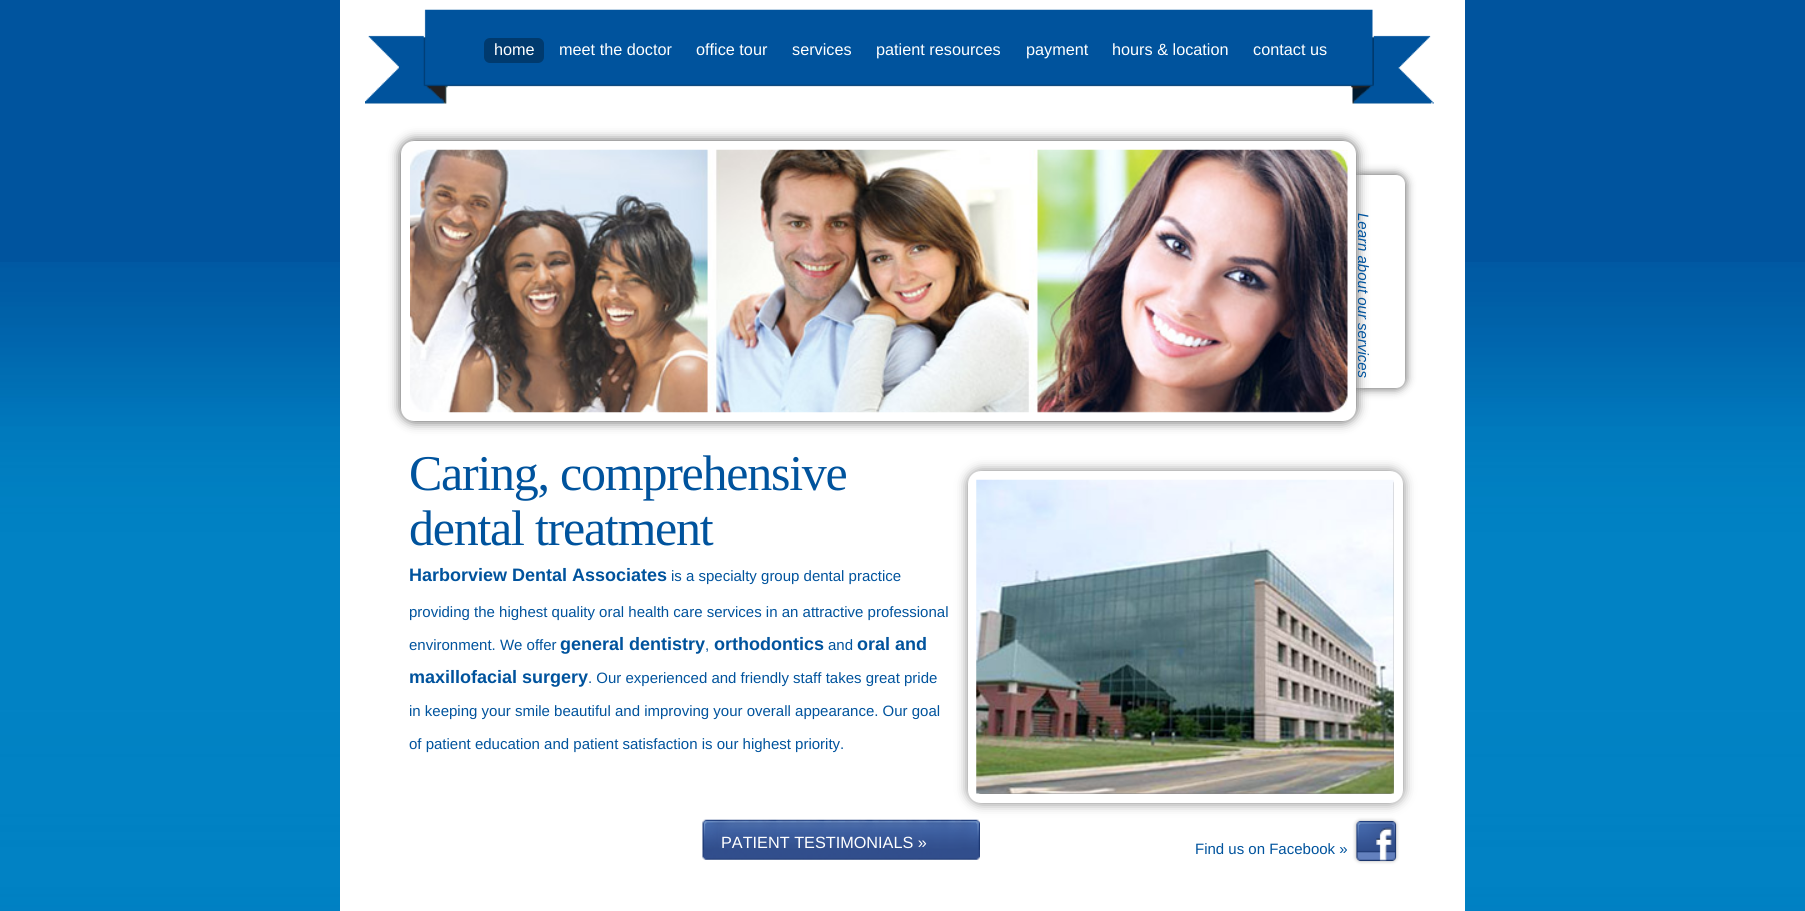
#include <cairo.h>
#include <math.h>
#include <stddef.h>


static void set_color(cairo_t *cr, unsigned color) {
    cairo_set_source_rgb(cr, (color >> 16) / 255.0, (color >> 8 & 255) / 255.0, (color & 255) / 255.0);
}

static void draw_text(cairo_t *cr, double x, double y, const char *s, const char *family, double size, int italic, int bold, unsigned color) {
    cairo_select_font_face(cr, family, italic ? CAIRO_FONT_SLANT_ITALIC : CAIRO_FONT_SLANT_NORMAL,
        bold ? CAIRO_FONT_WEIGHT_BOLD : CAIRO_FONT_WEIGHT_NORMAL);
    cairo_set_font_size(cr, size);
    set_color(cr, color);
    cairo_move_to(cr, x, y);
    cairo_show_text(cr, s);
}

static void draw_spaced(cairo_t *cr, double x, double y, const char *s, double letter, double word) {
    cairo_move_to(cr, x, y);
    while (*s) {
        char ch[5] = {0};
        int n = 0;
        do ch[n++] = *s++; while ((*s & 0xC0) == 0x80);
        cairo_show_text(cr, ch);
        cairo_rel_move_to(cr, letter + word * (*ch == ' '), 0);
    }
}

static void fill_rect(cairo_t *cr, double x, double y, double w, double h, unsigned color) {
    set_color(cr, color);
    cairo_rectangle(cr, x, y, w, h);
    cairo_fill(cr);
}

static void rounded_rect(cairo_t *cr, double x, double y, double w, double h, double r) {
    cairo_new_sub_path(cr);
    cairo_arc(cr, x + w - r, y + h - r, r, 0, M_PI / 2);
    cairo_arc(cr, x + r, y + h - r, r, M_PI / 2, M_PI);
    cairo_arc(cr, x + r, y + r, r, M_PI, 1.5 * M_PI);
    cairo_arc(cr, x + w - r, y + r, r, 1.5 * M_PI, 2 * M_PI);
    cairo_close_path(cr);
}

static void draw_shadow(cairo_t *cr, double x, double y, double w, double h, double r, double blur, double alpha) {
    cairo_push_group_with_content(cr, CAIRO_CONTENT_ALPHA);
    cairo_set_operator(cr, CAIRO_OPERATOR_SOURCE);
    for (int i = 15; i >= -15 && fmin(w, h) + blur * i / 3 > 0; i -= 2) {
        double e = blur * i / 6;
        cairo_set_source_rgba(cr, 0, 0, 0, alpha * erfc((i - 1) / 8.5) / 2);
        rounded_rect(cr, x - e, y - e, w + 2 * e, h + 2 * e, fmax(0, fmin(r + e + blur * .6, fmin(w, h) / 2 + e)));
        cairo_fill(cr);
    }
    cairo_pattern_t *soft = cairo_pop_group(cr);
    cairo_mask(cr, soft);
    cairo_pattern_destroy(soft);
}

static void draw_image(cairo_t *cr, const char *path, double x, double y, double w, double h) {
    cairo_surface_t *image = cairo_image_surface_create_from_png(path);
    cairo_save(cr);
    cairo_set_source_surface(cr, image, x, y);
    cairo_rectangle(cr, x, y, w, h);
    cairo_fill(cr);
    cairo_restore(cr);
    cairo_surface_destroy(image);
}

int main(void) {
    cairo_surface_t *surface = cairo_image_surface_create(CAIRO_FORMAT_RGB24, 1805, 911);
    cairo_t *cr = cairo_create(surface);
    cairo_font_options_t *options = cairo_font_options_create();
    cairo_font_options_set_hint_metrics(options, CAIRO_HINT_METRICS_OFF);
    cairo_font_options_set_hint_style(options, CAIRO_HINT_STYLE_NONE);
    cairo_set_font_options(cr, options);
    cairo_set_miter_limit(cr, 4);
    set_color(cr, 0x00549E);
    cairo_paint(cr);
    draw_image(cr, "assets/img1.png", 0, 262, 1805, 649);
    fill_rect(cr, 340, 0, 1125, 911, 0xFFFFFF);
    draw_image(cr, "assets/img2.png", 365, 9, 1069, 95);
    set_color(cr, 0x003A6E);
    rounded_rect(cr, 484, 38, 60, 25, 6);
    cairo_fill(cr);
    draw_text(cr, 494, 55, "home", "Liberation Sans", 16.25, 0, 0, 0xFFFFFF);
    draw_text(cr, 559, 55, "meet the doctor", "Liberation Sans", 16.25, 0, 0, 0xFFFFFF);
    draw_text(cr, 696, 55, "office tour", "Liberation Sans", 16.25, 0, 0, 0xFFFFFF);
    draw_text(cr, 792, 55, "services", "Liberation Sans", 16.25, 0, 0, 0xFFFFFF);
    draw_text(cr, 876, 55, "patient resources", "Liberation Sans", 16.25, 0, 0, 0xFFFFFF);
    draw_text(cr, 1026, 55, "payment", "Liberation Sans", 16.25, 0, 0, 0xFFFFFF);
    draw_text(cr, 1112, 55, "hours & location", "Liberation Sans", 16.25, 0, 0, 0xFFFFFF);
    draw_text(cr, 1253, 55, "contact us", "Liberation Sans", 16.25, 0, 0, 0xFFFFFF);
    set_color(cr, 0x000000);
    draw_shadow(cr, 1355, 175, 50, 213, 9, 5, 0.7);
    set_color(cr, 0xFFFFFF);
    cairo_new_path(cr);
    cairo_move_to(cr, 1355, 175);
    cairo_line_to(cr, 1396, 175);
    cairo_curve_to(cr, 1401, 175, 1405, 179, 1405, 184);
    cairo_line_to(cr, 1405, 379);
    cairo_curve_to(cr, 1405, 384, 1401, 388, 1396, 388);
    cairo_line_to(cr, 1355, 388);
    cairo_close_path(cr);
    cairo_fill(cr);
    set_color(cr, 0x000000);
    draw_shadow(cr, 401, 141, 955, 280, 13, 6, 0.7);
    set_color(cr, 0xFFFFFF);
    rounded_rect(cr, 401, 141, 955, 280, 13);
    cairo_fill(cr);
    draw_image(cr, "assets/img3.png", 410, 149, 938, 264);
    cairo_save(cr);
    cairo_translate(cr, 1358, 213);
    cairo_rotate(cr, 90 * M_PI / 180);
    draw_text(cr, 0, 0, "Learn about our services", "Liberation Sans", 15, 1, 0, 0x00539D);
    cairo_restore(cr);
    cairo_select_font_face(cr, "Liberation Serif", CAIRO_FONT_SLANT_NORMAL, CAIRO_FONT_WEIGHT_NORMAL);
    cairo_set_font_size(cr, 50);
    set_color(cr, 0x00539D);
    draw_spaced(cr, 409, 490, "Caring, comprehensive", -1.25, 0);
    draw_spaced(cr, 409, 545, "dental treatment", -1.25, 0);
    set_color(cr, 0x000000);
    draw_shadow(cr, 968, 471, 435, 332, 13, 6, 0.5);
    rounded_rect(cr, 972.5, 475.5, 426, 323, 8.5);
    set_color(cr, 0xFFFFFF);
    cairo_set_line_width(cr, 9);
    cairo_stroke(cr);
    draw_image(cr, "assets/img4.png", 976, 479, 418, 315);
    draw_text(cr, 409, 581, "Harborview Dental Associates", "Liberation Sans", 18, 0, 1, 0x00539D);
    draw_text(cr, 671, 581, "is a specialty group dental practice", "Liberation Sans", 15, 0, 0, 0x00539D);
    draw_text(cr, 409, 617, "providing the highest quality oral health care services in an attractive professional", "Liberation Sans", 15, 0, 0, 0x00539D);
    draw_text(cr, 409, 650, "environment. We offer", "Liberation Sans", 15, 0, 0, 0x00539D);
    draw_text(cr, 560, 650, "general dentistry", "Liberation Sans", 18, 0, 1, 0x00539D);
    draw_text(cr, 705, 650, ",", "Liberation Sans", 15, 0, 0, 0x00539D);
    draw_text(cr, 714, 650, "orthodontics", "Liberation Sans", 18, 0, 1, 0x00539D);
    draw_text(cr, 828, 650, "and", "Liberation Sans", 15, 0, 0, 0x00539D);
    draw_text(cr, 857, 650, "oral and", "Liberation Sans", 18, 0, 1, 0x00539D);
    draw_text(cr, 409, 683, "maxillofacial surgery", "Liberation Sans", 18, 0, 1, 0x00539D);
    draw_text(cr, 588, 683, ". Our experienced and friendly staff takes great pride", "Liberation Sans", 15, 0, 0, 0x00539D);
    draw_text(cr, 409, 716, "in keeping your smile beautiful and improving your overall appearance. Our goal", "Liberation Sans", 15, 0, 0, 0x00539D);
    draw_text(cr, 409, 749, "of patient education and patient satisfaction is our highest priority.", "Liberation Sans", 15, 0, 0, 0x00539D);
    draw_image(cr, "assets/img5.png", 702, 819, 278, 41);
    draw_text(cr, 721, 848, "PATIENT TESTIMONIALS »", "Liberation Sans", 16.25, 0, 0, 0xFFFFFF);
    set_color(cr, 0x000000);
    draw_shadow(cr, 1356, 821, 40, 40, 4, 2, 0.3);
    draw_text(cr, 1195, 854, "Find us on Facebook »", "Liberation Sans", 15, 0, 0, 0x00539D);
    draw_image(cr, "assets/img6.png", 1356, 821, 41, 40);
    cairo_surface_write_to_png(surface, "output.png");
    cairo_font_options_destroy(options);
    cairo_destroy(cr);
    cairo_surface_destroy(surface);
    return 0;
}
